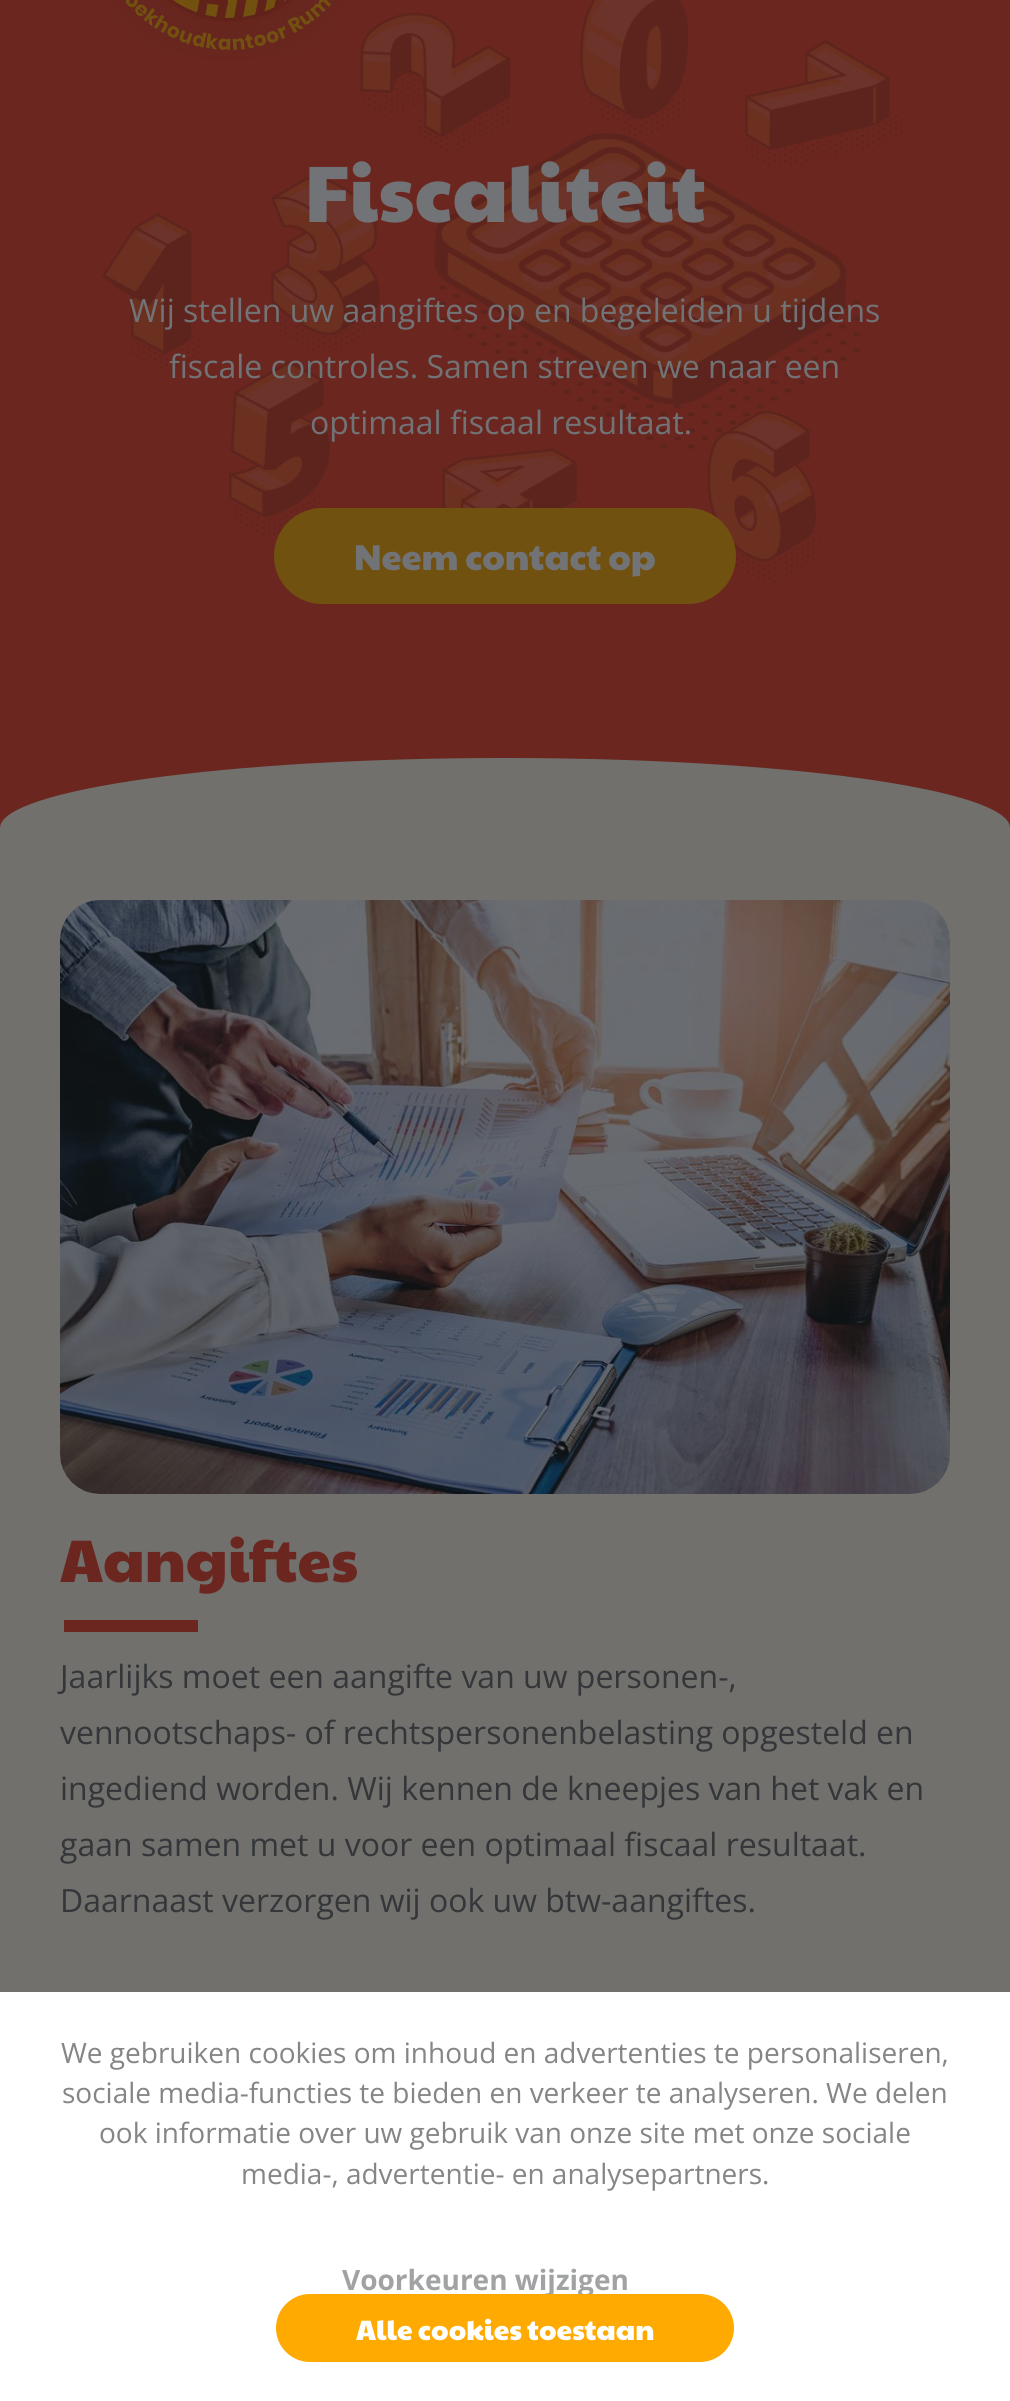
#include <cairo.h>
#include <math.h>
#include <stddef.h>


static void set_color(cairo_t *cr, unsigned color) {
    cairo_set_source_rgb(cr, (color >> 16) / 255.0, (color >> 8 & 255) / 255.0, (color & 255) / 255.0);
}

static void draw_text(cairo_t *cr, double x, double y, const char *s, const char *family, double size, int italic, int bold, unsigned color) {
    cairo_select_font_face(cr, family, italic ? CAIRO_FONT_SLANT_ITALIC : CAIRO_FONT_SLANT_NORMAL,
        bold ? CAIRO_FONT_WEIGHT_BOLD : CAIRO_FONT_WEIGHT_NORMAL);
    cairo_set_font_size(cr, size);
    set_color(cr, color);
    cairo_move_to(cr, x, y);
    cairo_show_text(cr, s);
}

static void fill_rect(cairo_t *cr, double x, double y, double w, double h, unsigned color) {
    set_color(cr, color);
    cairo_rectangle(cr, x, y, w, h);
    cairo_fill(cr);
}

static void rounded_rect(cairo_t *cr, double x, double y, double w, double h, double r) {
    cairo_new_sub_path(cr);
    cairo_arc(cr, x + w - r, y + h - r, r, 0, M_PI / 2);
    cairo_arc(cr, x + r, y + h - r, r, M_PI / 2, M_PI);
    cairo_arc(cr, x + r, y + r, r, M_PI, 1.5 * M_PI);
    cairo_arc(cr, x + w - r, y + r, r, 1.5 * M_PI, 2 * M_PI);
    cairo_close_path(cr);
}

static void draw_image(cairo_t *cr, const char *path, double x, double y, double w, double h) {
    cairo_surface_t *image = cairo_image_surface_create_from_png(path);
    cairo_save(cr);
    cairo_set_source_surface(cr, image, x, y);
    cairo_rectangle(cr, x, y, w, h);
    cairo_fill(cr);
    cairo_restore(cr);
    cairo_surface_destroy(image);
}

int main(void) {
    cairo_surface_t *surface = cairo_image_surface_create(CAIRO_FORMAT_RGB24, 1010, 2401);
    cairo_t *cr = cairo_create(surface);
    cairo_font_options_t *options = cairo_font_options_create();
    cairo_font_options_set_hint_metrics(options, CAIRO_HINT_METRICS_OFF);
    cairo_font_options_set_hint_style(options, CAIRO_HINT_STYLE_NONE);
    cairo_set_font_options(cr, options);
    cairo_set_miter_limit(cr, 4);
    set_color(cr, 0x71706D);
    cairo_paint(cr);
    fill_rect(cr, 0, 0, 1010, 828, 0x6B271F);
    draw_image(cr, "assets/img2.png", 102, 0, 801, 582);
    draw_image(cr, "assets/img1.png", 112, 0, 234, 61);
    draw_text(cr, 305, 222, "Fiscaliteit", "Paytone One", 80, 0, 0, 0x717376);
    draw_text(cr, 129, 322, "Wij stellen uw aangiftes op en begeleiden u tijdens", "Open Sans", 32, 0, 0, 0x717376);
    draw_text(cr, 169, 378, "fiscale controles. Samen streven we naar een", "Open Sans", 32, 0, 0, 0x717376);
    draw_text(cr, 310, 434, "optimaal fiscaal resultaat.", "Open Sans", 32, 0, 0, 0x717376);
    set_color(cr, 0x715110);
    rounded_rect(cr, 274, 508, 462, 96, 48);
    cairo_fill(cr);
    draw_text(cr, 354, 570, "Neem contact op", "Paytone One", 36, 0, 0, 0x717376);
    set_color(cr, 0x71706D);
    cairo_new_path(cr);
    cairo_move_to(cr, 505, 758);
    cairo_curve_to(cr, 784, 758, 1010, 789.5, 1010, 828);
    cairo_curve_to(cr, 1010, 866.5, 784, 898, 505, 898);
    cairo_curve_to(cr, 226, 898, 0, 866.5, 0, 828);
    cairo_curve_to(cr, 0, 789.5, 226, 758, 505, 758);
    cairo_close_path(cr);
    cairo_fill(cr);
    draw_image(cr, "assets/img3.png", 60, 900, 890, 594);
    draw_text(cr, 60, 1582, "Aangiftes", "Paytone One", 60, 0, 0, 0x6B271F);
    fill_rect(cr, 64, 1620, 134, 12, 0x6B271F);
    draw_text(cr, 60, 1688, "Jaarlijks moet een aangifte van uw personen-,", "Open Sans", 32, 0, 0, 0x343639);
    draw_text(cr, 60, 1744, "vennootschaps- of rechtspersonenbelasting opgesteld en", "Open Sans", 32, 0, 0, 0x343639);
    draw_text(cr, 60, 1800, "ingediend worden. Wij kennen de kneepjes van het vak en", "Open Sans", 32, 0, 0, 0x343639);
    draw_text(cr, 60, 1856, "gaan samen met u voor een optimaal fiscaal resultaat.", "Open Sans", 32, 0, 0, 0x343639);
    draw_text(cr, 60, 1912, "Daarnaast verzorgen wij ook uw btw-aangiftes.", "Open Sans", 32, 0, 0, 0x343639);
    fill_rect(cr, 0, 1992, 1010, 409, 0xFFFFFF);
    draw_text(cr, 61, 2063, "We gebruiken cookies om inhoud en advertenties te personaliseren,", "Open Sans", 28, 0, 0, 0x858585);
    draw_text(cr, 62, 2103, "sociale media-functies te bieden en verkeer te analyseren. We delen", "Open Sans", 28, 0, 0, 0x858585);
    draw_text(cr, 99, 2143, "ook informatie over uw gebruik van onze site met onze sociale", "Open Sans", 28, 0, 0, 0x858585);
    draw_text(cr, 241, 2184, "media-, advertentie- en analysepartners.", "Open Sans", 28, 0, 0, 0x858585);
    draw_text(cr, 342, 2290, "Voorkeuren wijzigen", "Open Sans", 28, 0, 1, 0xA1A2A4);
    set_color(cr, 0xFFAA00);
    rounded_rect(cr, 276, 2294, 458, 68, 34);
    cairo_fill(cr);
    draw_text(cr, 356, 2340, "Alle cookies toestaan", "Paytone One", 28, 0, 0, 0xFFFFFF);
    cairo_surface_write_to_png(surface, "output.png");
    cairo_font_options_destroy(options);
    cairo_destroy(cr);
    cairo_surface_destroy(surface);
    return 0;
}
